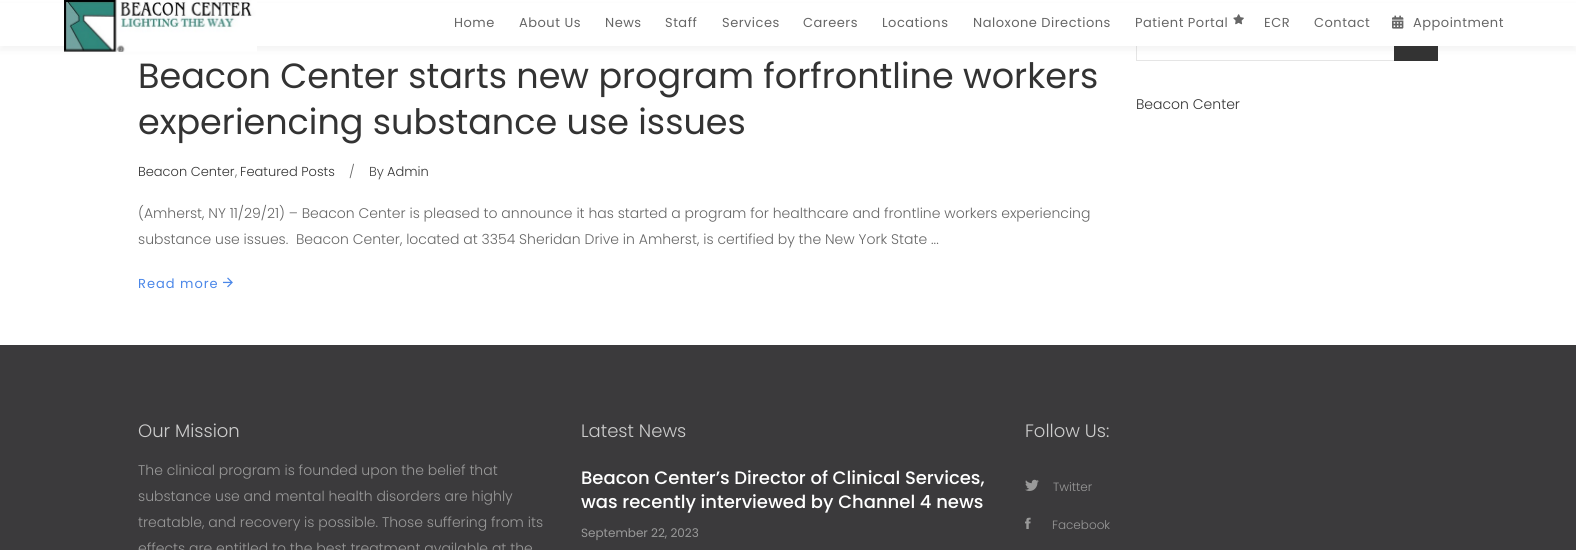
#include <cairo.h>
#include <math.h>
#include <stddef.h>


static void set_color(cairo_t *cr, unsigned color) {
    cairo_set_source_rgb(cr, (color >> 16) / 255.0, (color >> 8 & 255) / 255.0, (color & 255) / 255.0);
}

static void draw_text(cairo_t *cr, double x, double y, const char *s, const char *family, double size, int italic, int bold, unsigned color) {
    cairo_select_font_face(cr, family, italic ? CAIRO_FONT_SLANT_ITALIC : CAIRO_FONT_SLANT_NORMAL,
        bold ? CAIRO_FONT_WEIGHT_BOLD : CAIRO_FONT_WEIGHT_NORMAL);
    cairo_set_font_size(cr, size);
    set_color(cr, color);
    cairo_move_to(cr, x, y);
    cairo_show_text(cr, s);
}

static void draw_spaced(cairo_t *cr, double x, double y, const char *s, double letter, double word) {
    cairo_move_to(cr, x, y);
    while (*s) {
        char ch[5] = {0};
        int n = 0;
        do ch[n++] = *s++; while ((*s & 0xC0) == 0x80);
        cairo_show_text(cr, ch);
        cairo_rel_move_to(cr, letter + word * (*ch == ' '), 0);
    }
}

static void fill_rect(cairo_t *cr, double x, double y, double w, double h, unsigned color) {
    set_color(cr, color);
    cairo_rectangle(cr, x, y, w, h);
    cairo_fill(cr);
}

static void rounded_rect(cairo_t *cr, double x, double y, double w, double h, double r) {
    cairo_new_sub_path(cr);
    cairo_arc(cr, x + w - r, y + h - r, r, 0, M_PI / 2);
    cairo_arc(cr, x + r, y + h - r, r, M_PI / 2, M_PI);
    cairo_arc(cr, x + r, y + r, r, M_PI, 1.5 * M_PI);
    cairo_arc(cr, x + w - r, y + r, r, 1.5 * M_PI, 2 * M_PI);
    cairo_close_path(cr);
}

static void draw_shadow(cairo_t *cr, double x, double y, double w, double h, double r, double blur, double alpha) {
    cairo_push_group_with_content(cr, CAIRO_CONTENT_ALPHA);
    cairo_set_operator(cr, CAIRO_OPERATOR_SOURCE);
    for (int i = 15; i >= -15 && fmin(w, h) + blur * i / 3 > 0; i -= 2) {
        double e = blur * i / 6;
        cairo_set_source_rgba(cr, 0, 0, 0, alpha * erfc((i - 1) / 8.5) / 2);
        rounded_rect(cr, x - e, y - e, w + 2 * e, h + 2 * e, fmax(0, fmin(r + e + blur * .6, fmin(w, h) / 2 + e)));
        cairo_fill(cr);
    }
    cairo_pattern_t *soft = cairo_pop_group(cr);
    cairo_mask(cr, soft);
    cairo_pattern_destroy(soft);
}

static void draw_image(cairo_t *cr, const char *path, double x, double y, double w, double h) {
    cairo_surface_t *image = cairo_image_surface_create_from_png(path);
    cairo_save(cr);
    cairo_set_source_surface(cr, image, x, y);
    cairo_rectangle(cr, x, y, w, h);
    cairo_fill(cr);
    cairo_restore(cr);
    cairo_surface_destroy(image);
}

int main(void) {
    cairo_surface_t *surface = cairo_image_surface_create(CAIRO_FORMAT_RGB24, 1576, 550);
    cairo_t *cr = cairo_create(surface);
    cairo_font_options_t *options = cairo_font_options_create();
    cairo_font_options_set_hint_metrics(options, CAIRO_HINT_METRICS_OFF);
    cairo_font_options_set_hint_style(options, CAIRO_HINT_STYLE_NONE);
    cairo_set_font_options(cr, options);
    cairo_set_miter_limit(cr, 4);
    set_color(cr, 0xFFFFFF);
    cairo_paint(cr);
    fill_rect(cr, 1136, 60, 258, 1, 0xE5E5E5);
    fill_rect(cr, 1136, 46, 1, 15, 0xE5E5E5);
    fill_rect(cr, 1394, 46, 44, 15, 0x333333);
    set_color(cr, 0x333333);
    draw_shadow(cr, 0, 5, 1576, 46, 0, 2.5, 0.05);
    fill_rect(cr, 0, 3, 1576, 43, 0xFFFFFF);
    draw_image(cr, "assets/img1.png", 64, 0, 193, 52);
    cairo_select_font_face(cr, "Poppins", CAIRO_FONT_SLANT_NORMAL, CAIRO_FONT_WEIGHT_NORMAL);
    cairo_set_font_size(cr, 13);
    set_color(cr, 0x666666);
    draw_spaced(cr, 454, 27, "Home", 0.5, 0);
    draw_spaced(cr, 519, 27, "About Us", 0.5, 0);
    draw_spaced(cr, 605, 27, "News", 0.5, 0);
    draw_spaced(cr, 665, 27, "Staff", 0.5, 0);
    draw_spaced(cr, 722, 27, "Services", 0.5, 0);
    draw_spaced(cr, 803, 27, "Careers", 0.5, 0);
    draw_spaced(cr, 882, 27, "Locations", 0.5, 0);
    draw_spaced(cr, 973, 27, "Naloxone Directions", 0.5, 0);
    draw_spaced(cr, 1135, 27, "Patient Portal", 0.5, 0);
    draw_image(cr, "assets/img2.png", 1233, 14, 11, 11);
    draw_spaced(cr, 1264, 27, "ECR", 0.5, 0);
    draw_spaced(cr, 1314, 27, "Contact", 0.5, 0);
    draw_image(cr, "assets/img3.png", 1392, 15, 12, 14);
    draw_spaced(cr, 1413, 27, "Appointment", 0.5, 0);
    draw_text(cr, 138, 88, "Beacon Center starts new program forfrontline workers", "Poppins", 35, 0, 0, 0x333333);
    draw_text(cr, 138, 134, "experiencing substance use issues", "Poppins", 35, 0, 0, 0x333333);
    draw_text(cr, 138, 176, "Beacon Center", "Poppins Light", 13, 0, 0, 0x333333);
    draw_text(cr, 235, 176, ",", "Poppins Light", 13, 0, 0, 0x666666);
    draw_text(cr, 240, 176, "Featured Posts", "Poppins Light", 13, 0, 0, 0x333333);
    draw_text(cr, 349, 176, "/", "Poppins Light", 13, 0, 0, 0x666666);
    draw_text(cr, 369, 176, "By", "Poppins Light", 13, 0, 0, 0x444444);
    draw_text(cr, 387, 176, "Admin", "Poppins Light", 13, 0, 0, 0x333333);
    draw_text(cr, 138, 218, "(Amherst, NY 11/29/21) – Beacon Center is pleased to announce it has started a program for healthcare and frontline workers experiencing", "Poppins Light", 14, 0, 0, 0x666666);
    draw_text(cr, 138, 244, "substance use issues.  Beacon Center, located at 3354 Sheridan Drive in Amherst, is certified by the New York State ...", "Poppins Light", 14, 0, 0, 0x666666);
    cairo_select_font_face(cr, "Poppins", CAIRO_FONT_SLANT_NORMAL, CAIRO_FONT_WEIGHT_NORMAL);
    cairo_set_font_size(cr, 13);
    set_color(cr, 0x4B87E8);
    draw_spaced(cr, 138, 288, "Read more", 1, 0);
    draw_image(cr, "assets/img4.png", 223, 277, 10, 11);
    draw_text(cr, 1136, 109, "Beacon Center", "Poppins Light", 14, 0, 0, 0x333333);
    fill_rect(cr, 0, 345, 1576, 205, 0x3B3A3C);
    draw_text(cr, 138, 437, "Our Mission", "Poppins Light", 18, 0, 0, 0xCCCCCC);
    draw_text(cr, 138, 475, "The clinical program is founded upon the belief that", "Poppins Light", 14, 0, 0, 0x999999);
    draw_text(cr, 138, 501, "substance use and mental health disorders are highly", "Poppins Light", 14, 0, 0, 0x999999);
    draw_text(cr, 138, 527, "treatable, and recovery is possible. Those suffering from its", "Poppins Light", 14, 0, 0, 0x999999);
    draw_text(cr, 138, 553, "effects are entitled to the best treatment available at the", "Poppins Light", 14, 0, 0, 0x999999);
    draw_text(cr, 581, 437, "Latest News", "Poppins Light", 18, 0, 0, 0xCCCCCC);
    draw_text(cr, 581, 484, "Beacon Center’s Director of Clinical Services,", "Poppins Medium", 18, 0, 0, 0xFFFFFF);
    draw_text(cr, 581, 508, "was recently interviewed by Channel 4 news", "Poppins Medium", 18, 0, 0, 0xFFFFFF);
    draw_text(cr, 581, 537, "September 22, 2023", "Poppins", 12, 0, 0, 0x999999);
    draw_text(cr, 1025, 437, "Follow Us:", "Poppins Light", 18, 0, 0, 0xCCCCCC);
    draw_image(cr, "assets/img5.png", 1025, 479, 14, 12);
    draw_text(cr, 1053, 491, "Twitter", "Poppins Light", 12, 0, 0, 0x999999);
    draw_image(cr, "assets/img6.png", 1025, 517, 6, 12);
    draw_text(cr, 1052, 529, "Facebook", "Poppins Light", 12, 0, 0, 0x999999);
    cairo_surface_write_to_png(surface, "output.png");
    cairo_font_options_destroy(options);
    cairo_destroy(cr);
    cairo_surface_destroy(surface);
    return 0;
}
